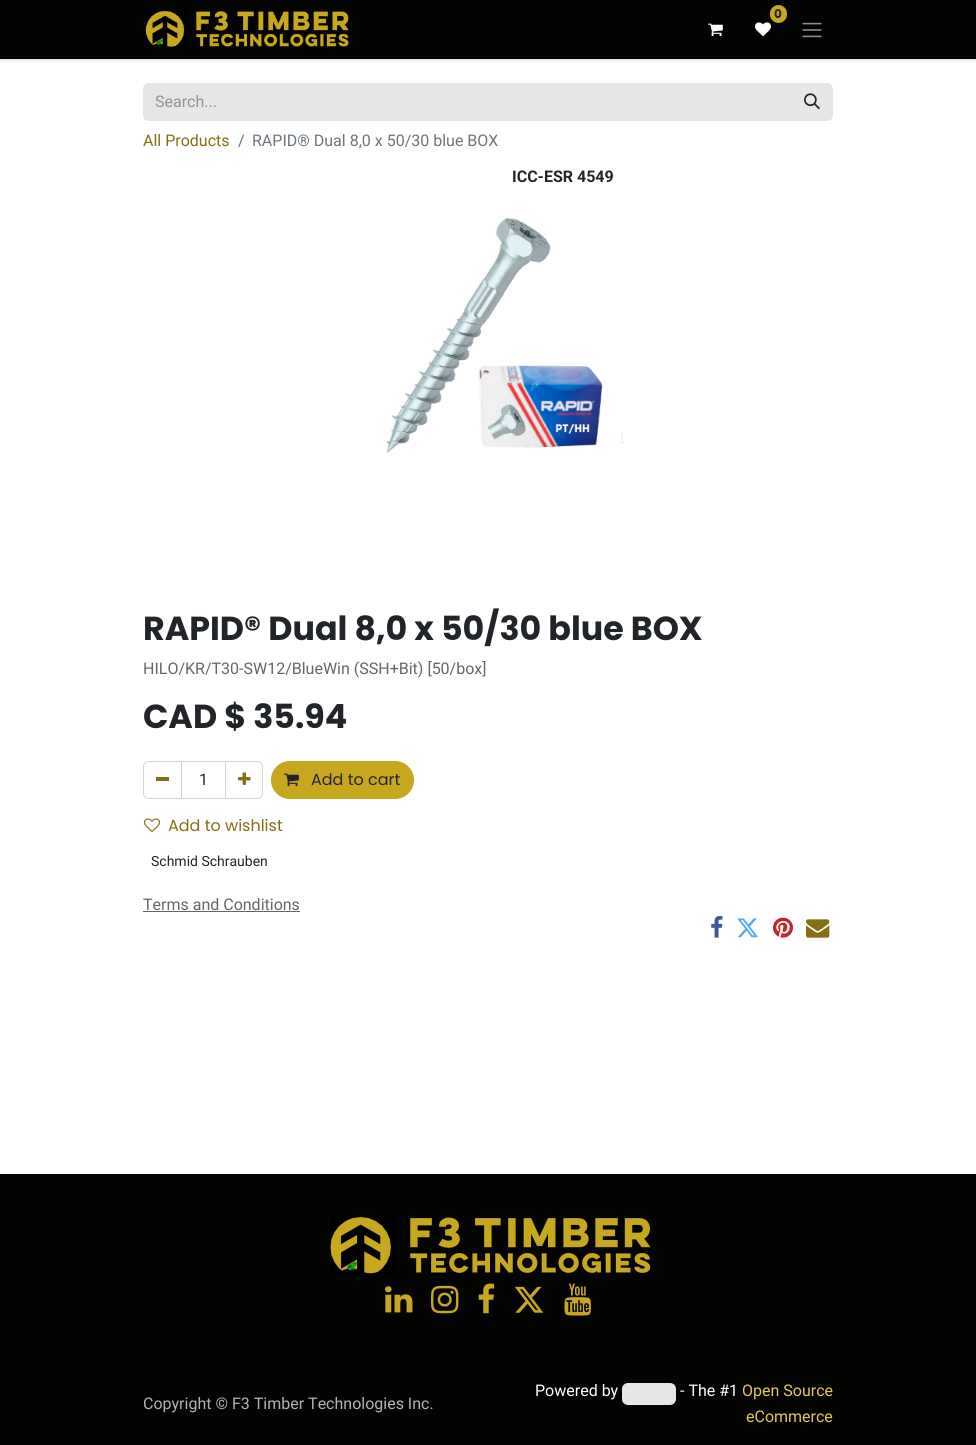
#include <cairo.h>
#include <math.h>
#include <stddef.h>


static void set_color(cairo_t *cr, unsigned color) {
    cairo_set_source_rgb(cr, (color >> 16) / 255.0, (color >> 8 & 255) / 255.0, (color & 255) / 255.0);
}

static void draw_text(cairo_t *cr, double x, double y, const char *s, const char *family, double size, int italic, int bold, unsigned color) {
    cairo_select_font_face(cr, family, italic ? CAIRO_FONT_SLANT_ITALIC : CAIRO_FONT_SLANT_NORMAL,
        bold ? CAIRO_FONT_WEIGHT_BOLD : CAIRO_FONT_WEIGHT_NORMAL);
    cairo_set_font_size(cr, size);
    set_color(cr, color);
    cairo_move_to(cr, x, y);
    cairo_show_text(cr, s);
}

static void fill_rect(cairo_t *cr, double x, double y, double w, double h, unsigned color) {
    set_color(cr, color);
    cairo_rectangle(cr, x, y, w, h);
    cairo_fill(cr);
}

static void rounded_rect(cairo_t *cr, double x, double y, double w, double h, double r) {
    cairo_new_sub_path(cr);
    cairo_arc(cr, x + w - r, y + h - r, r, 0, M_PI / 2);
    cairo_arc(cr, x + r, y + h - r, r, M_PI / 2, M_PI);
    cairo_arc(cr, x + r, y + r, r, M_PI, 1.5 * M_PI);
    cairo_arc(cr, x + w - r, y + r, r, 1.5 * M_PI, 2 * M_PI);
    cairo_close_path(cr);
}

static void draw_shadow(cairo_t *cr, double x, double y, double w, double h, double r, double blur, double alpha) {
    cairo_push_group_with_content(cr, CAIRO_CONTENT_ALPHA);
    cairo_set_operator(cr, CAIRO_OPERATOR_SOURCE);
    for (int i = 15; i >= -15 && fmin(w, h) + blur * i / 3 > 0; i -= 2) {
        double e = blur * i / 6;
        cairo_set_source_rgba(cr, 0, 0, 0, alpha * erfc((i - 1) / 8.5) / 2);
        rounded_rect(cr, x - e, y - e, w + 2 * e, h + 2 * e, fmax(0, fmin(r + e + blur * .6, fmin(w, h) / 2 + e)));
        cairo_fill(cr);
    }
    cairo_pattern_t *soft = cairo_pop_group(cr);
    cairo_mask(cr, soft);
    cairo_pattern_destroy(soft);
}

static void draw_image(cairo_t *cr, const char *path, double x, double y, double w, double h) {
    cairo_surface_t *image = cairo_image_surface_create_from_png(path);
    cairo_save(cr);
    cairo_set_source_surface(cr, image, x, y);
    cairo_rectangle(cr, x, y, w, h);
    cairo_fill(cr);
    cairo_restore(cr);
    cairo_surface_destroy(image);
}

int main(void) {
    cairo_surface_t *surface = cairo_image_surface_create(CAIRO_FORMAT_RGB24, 976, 1445);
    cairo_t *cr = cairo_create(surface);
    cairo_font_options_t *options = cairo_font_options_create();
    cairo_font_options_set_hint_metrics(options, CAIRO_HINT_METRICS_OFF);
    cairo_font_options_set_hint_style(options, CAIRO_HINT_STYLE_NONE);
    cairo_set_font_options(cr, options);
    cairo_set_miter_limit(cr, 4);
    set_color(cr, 0xFFFFFF);
    cairo_paint(cr);
    set_color(cr, 0x000000);
    draw_shadow(cr, 0, 0, 976, 59, 0, 2.5, 0.25);
    fill_rect(cr, 0, 0, 976, 59, 0x030302);
    draw_image(cr, "assets/img1.png", 145, 10, 204, 37);
    draw_image(cr, "assets/img2.png", 755, 22, 16, 15);
    set_color(cr, 0xC7A71E);
    rounded_rect(cr, 770, 5, 17, 18, 8.5);
    cairo_fill(cr);
    draw_text(cr, 774, 18, "0", "Poppins", 12, 0, 1, 0x212529);
    draw_image(cr, "assets/img3.png", 708, 23, 15, 14);
    draw_image(cr, "assets/img4.png", 802, 22, 20, 16);
    set_color(cr, 0xE6E6E6);
    cairo_new_path(cr);
    cairo_move_to(cr, 149, 83);
    cairo_line_to(cr, 792, 83);
    cairo_line_to(cr, 792, 121);
    cairo_line_to(cr, 149, 121);
    cairo_curve_to(cr, 145.5, 121, 143, 118.5, 143, 115);
    cairo_line_to(cr, 143, 89);
    cairo_curve_to(cr, 143, 85.5, 145.5, 83, 149, 83);
    cairo_close_path(cr);
    cairo_fill(cr);
    draw_text(cr, 155, 107, "Search...", "Roboto", 16, 0, 0, 0x909294);
    set_color(cr, 0xE6E6E6);
    cairo_new_path(cr);
    cairo_move_to(cr, 791.5, 83.5);
    cairo_line_to(cr, 827, 83.5);
    cairo_curve_to(cr, 830, 83.5, 832.5, 86, 832.5, 89);
    cairo_line_to(cr, 832.5, 115);
    cairo_curve_to(cr, 832.5, 118, 830, 120.5, 827, 120.5);
    cairo_line_to(cr, 791.5, 120.5);
    cairo_close_path(cr);
    cairo_fill_preserve(cr);
    cairo_set_line_width(cr, 1);
    cairo_stroke(cr);
    draw_image(cr, "assets/img5.png", 804, 93, 16, 17);
    draw_text(cr, 143, 146, "All Products", "Roboto", 16, 0, 0, 0x856F14);
    draw_text(cr, 238, 146, "/", "Roboto", 16, 0, 0, 0x6C757D);
    draw_text(cr, 252, 146, "RAPID® Dual 8,0 x 50/30 blue BOX", "Roboto", 16, 0, 0, 0x6C757D);
    draw_text(cr, 512, 182, "ICC-ESR 4549", "Roboto", 16, 0, 1, 0x212529);
    draw_image(cr, "assets/img6.png", 386, 218, 238, 235);
    draw_text(cr, 143, 640, "RAPID® Dual 8,0 x 50/30 blue BOX", "Poppins", 33.3, 0, 1, 0x212529);
    draw_text(cr, 143, 674, "HILO/KR/T30-SW12/BlueWin (SSH+Bit) [50/box]", "Roboto", 16, 0, 0, 0x646669);
    draw_text(cr, 143, 728, "CAD $ 35.94", "Poppins", 33.3, 0, 1, 0x212529);
    cairo_rectangle(cr, 181.5, 761.5, 44, 37);
    set_color(cr, 0xCED4DA);
    cairo_stroke(cr);
    cairo_new_path(cr);
    cairo_move_to(cr, 149, 761.5);
    cairo_line_to(cr, 181.5, 761.5);
    cairo_line_to(cr, 181.5, 798.5);
    cairo_line_to(cr, 149, 798.5);
    cairo_curve_to(cr, 146, 798.5, 143.5, 796, 143.5, 793);
    cairo_line_to(cr, 143.5, 767);
    cairo_curve_to(cr, 143.5, 764, 146, 761.5, 149, 761.5);
    cairo_close_path(cr);
    cairo_stroke(cr);
    fill_rect(cr, 156, 777, 13, 4, 0x856F14);
    draw_text(cr, 199, 785, "1", "Roboto", 16, 0, 0, 0x212529);
    cairo_new_path(cr);
    cairo_move_to(cr, 225.5, 761.5);
    cairo_line_to(cr, 257, 761.5);
    cairo_curve_to(cr, 260, 761.5, 262.5, 764, 262.5, 767);
    cairo_line_to(cr, 262.5, 793);
    cairo_curve_to(cr, 262.5, 796, 260, 798.5, 257, 798.5);
    cairo_line_to(cr, 225.5, 798.5);
    cairo_close_path(cr);
    set_color(cr, 0xCED4DA);
    cairo_stroke(cr);
    draw_image(cr, "assets/img7.png", 238, 772, 13, 13);
    set_color(cr, 0xC7A71E);
    rounded_rect(cr, 271.5, 761.5, 142, 37, 18.5);
    cairo_fill_preserve(cr);
    cairo_stroke(cr);
    draw_image(cr, "assets/img8.png", 284, 773, 15, 14);
    draw_text(cr, 311, 785, "Add to cart", "Poppins", 16, 0, 0, 0x212529);
    draw_image(cr, "assets/img9.png", 144, 818, 16, 15);
    draw_text(cr, 168, 831, "Add to wishlist", "Poppins", 16, 0, 0, 0x856F14);
    draw_text(cr, 151, 866, "Schmid Schrauben", "Roboto", 14, 0, 0, 0x212529);
    draw_text(cr, 143, 910, "Terms and Conditions", "Roboto", 16, 0, 0, 0x646669);
    fill_rect(cr, 143, 911, 157, 1, 0x646669);
    draw_image(cr, "assets/img10.png", 711, 916, 12, 22);
    draw_image(cr, "assets/img11.png", 737, 918, 21, 20);
    draw_image(cr, "assets/img12.png", 773, 917, 20, 21);
    draw_image(cr, "assets/img13.png", 806, 919, 24, 19);
    fill_rect(cr, 0, 1174, 976, 271, 0x030302);
    draw_image(cr, "assets/img14.png", 330, 1216, 321, 58);
    draw_image(cr, "assets/img15.png", 385, 1286, 28, 27);
    draw_image(cr, "assets/img16.png", 431, 1285, 28, 29);
    draw_image(cr, "assets/img17.png", 478, 1283, 17, 31);
    draw_image(cr, "assets/img18.png", 514, 1286, 30, 27);
    draw_image(cr, "assets/img19.png", 564, 1283, 27, 33);
    draw_text(cr, 143, 1409, "Copyright © F3 Timber Technologies Inc.", "Roboto", 16, 0, 0, 0xB3B3B3);
    draw_text(cr, 535, 1396, "Powered by", "Roboto", 16, 0, 0, 0xFFFFFF);
    set_color(cr, 0xE6E6E6);
    rounded_rect(cr, 622, 1383, 54, 22, 6);
    cairo_fill(cr);
    draw_text(cr, 680, 1396, "- The #1", "Roboto", 16, 0, 0, 0xFFFFFF);
    draw_text(cr, 742, 1396, "Open Source", "Roboto", 16, 0, 0, 0xE5C952);
    draw_text(cr, 746, 1422, "eCommerce", "Roboto", 16, 0, 0, 0xE5C952);
    cairo_surface_write_to_png(surface, "output.png");
    cairo_font_options_destroy(options);
    cairo_destroy(cr);
    cairo_surface_destroy(surface);
    return 0;
}
